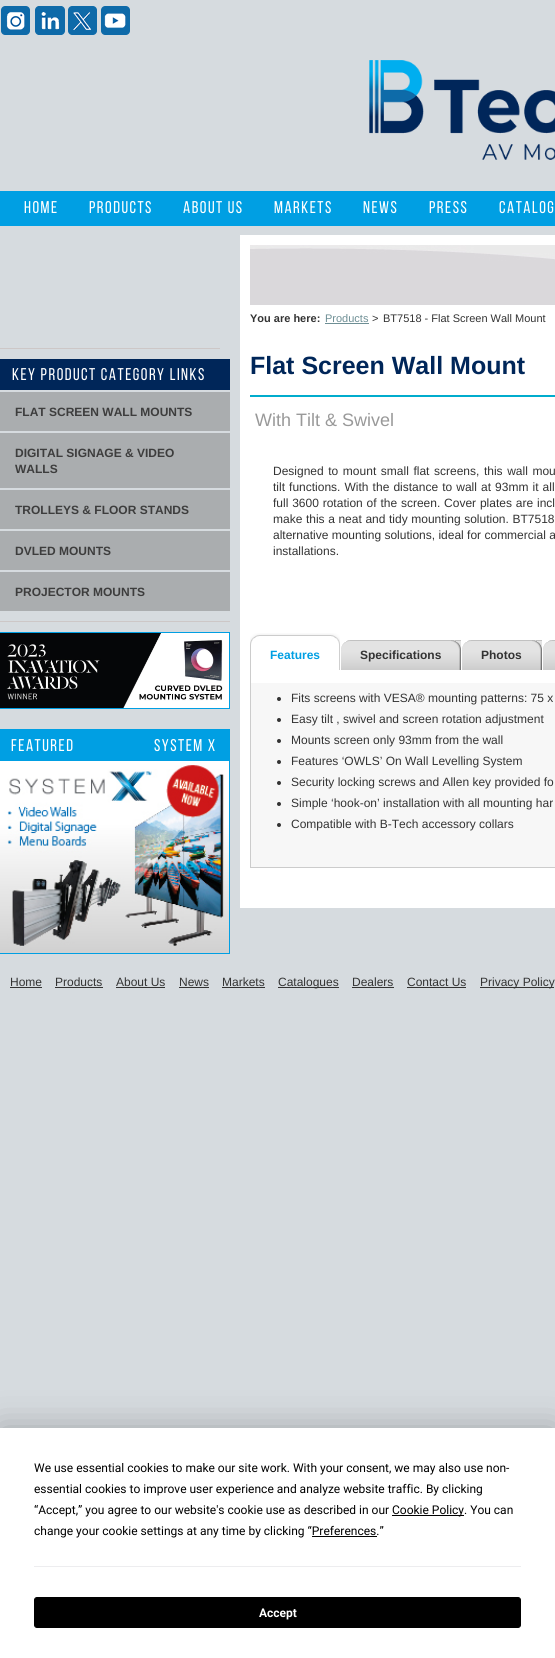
#include <cairo.h>
#include <math.h>
#include <stddef.h>


static void set_color(cairo_t *cr, unsigned color) {
    cairo_set_source_rgb(cr, (color >> 16) / 255.0, (color >> 8 & 255) / 255.0, (color & 255) / 255.0);
}

static void draw_text(cairo_t *cr, double x, double y, const char *s, const char *family, double size, int italic, int bold, unsigned color) {
    cairo_select_font_face(cr, family, italic ? CAIRO_FONT_SLANT_ITALIC : CAIRO_FONT_SLANT_NORMAL,
        bold ? CAIRO_FONT_WEIGHT_BOLD : CAIRO_FONT_WEIGHT_NORMAL);
    cairo_set_font_size(cr, size);
    set_color(cr, color);
    cairo_move_to(cr, x, y);
    cairo_show_text(cr, s);
}

static void draw_spaced(cairo_t *cr, double x, double y, const char *s, double letter, double word) {
    cairo_move_to(cr, x, y);
    while (*s) {
        char ch[5] = {0};
        int n = 0;
        do ch[n++] = *s++; while ((*s & 0xC0) == 0x80);
        cairo_show_text(cr, ch);
        cairo_rel_move_to(cr, letter + word * (*ch == ' '), 0);
    }
}

static void fill_rect(cairo_t *cr, double x, double y, double w, double h, unsigned color) {
    set_color(cr, color);
    cairo_rectangle(cr, x, y, w, h);
    cairo_fill(cr);
}

static void rounded_rect(cairo_t *cr, double x, double y, double w, double h, double r) {
    cairo_new_sub_path(cr);
    cairo_arc(cr, x + w - r, y + h - r, r, 0, M_PI / 2);
    cairo_arc(cr, x + r, y + h - r, r, M_PI / 2, M_PI);
    cairo_arc(cr, x + r, y + r, r, M_PI, 1.5 * M_PI);
    cairo_arc(cr, x + w - r, y + r, r, 1.5 * M_PI, 2 * M_PI);
    cairo_close_path(cr);
}

static void draw_shadow(cairo_t *cr, double x, double y, double w, double h, double r, double blur, double alpha) {
    cairo_push_group_with_content(cr, CAIRO_CONTENT_ALPHA);
    cairo_set_operator(cr, CAIRO_OPERATOR_SOURCE);
    for (int i = 15; i >= -15 && fmin(w, h) + blur * i / 3 > 0; i -= 2) {
        double e = blur * i / 6;
        cairo_set_source_rgba(cr, 0, 0, 0, alpha * erfc((i - 1) / 8.5) / 2);
        rounded_rect(cr, x - e, y - e, w + 2 * e, h + 2 * e, fmax(0, fmin(r + e + blur * .6, fmin(w, h) / 2 + e)));
        cairo_fill(cr);
    }
    cairo_pattern_t *soft = cairo_pop_group(cr);
    cairo_mask(cr, soft);
    cairo_pattern_destroy(soft);
}

static void draw_image(cairo_t *cr, const char *path, double x, double y, double w, double h) {
    cairo_surface_t *image = cairo_image_surface_create_from_png(path);
    cairo_save(cr);
    cairo_set_source_surface(cr, image, x, y);
    cairo_rectangle(cr, x, y, w, h);
    cairo_fill(cr);
    cairo_restore(cr);
    cairo_surface_destroy(image);
}

int main(void) {
    cairo_surface_t *surface = cairo_image_surface_create(CAIRO_FORMAT_RGB24, 555, 1658);
    cairo_t *cr = cairo_create(surface);
    cairo_font_options_t *options = cairo_font_options_create();
    cairo_font_options_set_hint_metrics(options, CAIRO_HINT_METRICS_OFF);
    cairo_font_options_set_hint_style(options, CAIRO_HINT_STYLE_NONE);
    cairo_set_font_options(cr, options);
    cairo_set_miter_limit(cr, 4);
    set_color(cr, 0xD6DBDF);
    cairo_paint(cr);
    draw_image(cr, "assets/img1.png", 1, 6, 29, 29);
    draw_image(cr, "assets/img2.png", 35, 6, 30, 29);
    draw_image(cr, "assets/img3.png", 68, 6, 29, 29);
    draw_image(cr, "assets/img4.png", 101, 6, 29, 29);
    draw_image(cr, "assets/img5.png", 369, 60, 186, 100);
    fill_rect(cr, 0, 191, 555, 35, 0x009FE3);
    cairo_select_font_face(cr, "Bebas Neue", CAIRO_FONT_SLANT_NORMAL, CAIRO_FONT_WEIGHT_NORMAL);
    cairo_set_font_size(cr, 17);
    set_color(cr, 0xFFFFFF);
    draw_spaced(cr, 24, 213, "Home", 1.5, 0);
    draw_spaced(cr, 89, 213, "Products", 1.5, 0);
    draw_spaced(cr, 183, 213, "About Us", 1.5, 0);
    draw_spaced(cr, 274, 213, "Markets", 1.5, 0);
    draw_spaced(cr, 363, 213, "News", 1.5, 0);
    draw_spaced(cr, 429, 213, "Press", 1.5, 0);
    draw_spaced(cr, 499, 213, "Catalog", 1.5, 0);
    fill_rect(cr, 0, 348, 220, 1, 0xCDC7C7);
    fill_rect(cr, 0, 621, 230, 1, 0xCDC7C7);
    fill_rect(cr, 0, 359, 230, 31, 0x002659);
    set_color(cr, 0xFFFFFF);
    draw_spaced(cr, 12, 380, "KEY PRODUCT CATEGORY LINKS", 1.5, 0);
    fill_rect(cr, 0, 392, 230, 39, 0xAAADAF);
    draw_text(cr, 15, 416, "FLAT SCREEN WALL MOUNTS", "Liberation Sans", 12, 0, 1, 0x3D3D3D);
    fill_rect(cr, 0, 433, 230, 55, 0xAAADAF);
    draw_text(cr, 15, 457, "DIGITAL SIGNAGE & VIDEO", "Liberation Sans", 12, 0, 1, 0x3D3D3D);
    draw_text(cr, 15, 473, "WALLS", "Liberation Sans", 12, 0, 1, 0x3D3D3D);
    fill_rect(cr, 0, 490, 230, 39, 0xAAADAF);
    draw_text(cr, 15, 514, "TROLLEYS & FLOOR STANDS", "Liberation Sans", 12, 0, 1, 0x3D3D3D);
    fill_rect(cr, 0, 531, 230, 39, 0xAAADAF);
    draw_text(cr, 15, 555, "DVLED MOUNTS", "Liberation Sans", 12, 0, 1, 0x3D3D3D);
    fill_rect(cr, 0, 572, 230, 39, 0xAAADAF);
    draw_text(cr, 15, 596, "PROJECTOR MOUNTS", "Liberation Sans", 12, 0, 1, 0x3D3D3D);
    fill_rect(cr, 223, 633, 6, 75, 0xFFFFFF);
    fill_rect(cr, 0, 632, 230, 1, 0x009FE3);
    fill_rect(cr, 229, 632, 1, 77, 0x009FE3);
    fill_rect(cr, 0, 708, 230, 1, 0x009FE3);
    draw_image(cr, "assets/img6.png", 0, 633, 223, 75);
    fill_rect(cr, 0, 761, 229, 4, 0xFFFFFF);
    fill_rect(cr, 0, 729, 230, 1, 0x009FE3);
    fill_rect(cr, 229, 729, 1, 225, 0x009FE3);
    fill_rect(cr, 0, 953, 230, 1, 0x009FE3);
    fill_rect(cr, 0, 730, 229, 31, 0x009FE3);
    cairo_select_font_face(cr, "Bebas Neue", CAIRO_FONT_SLANT_NORMAL, CAIRO_FONT_WEIGHT_NORMAL);
    cairo_set_font_size(cr, 17);
    set_color(cr, 0xFFFFFF);
    draw_spaced(cr, 11, 751, "FEATURED", 1.5, 0);
    draw_spaced(cr, 154, 751, "SYSTEM X", 1.5, 0);
    draw_image(cr, "assets/img7.png", 0, 765, 229, 188);
    fill_rect(cr, 240, 235, 315, 673, 0xFFFFFF);
    draw_image(cr, "assets/img8.png", 250, 245, 305, 60);
    draw_text(cr, 250, 322, "You are here:", "Liberation Sans", 11, 0, 1, 0x333333);
    draw_text(cr, 325, 322, "Products", "Liberation Sans", 11, 0, 0, 0x6E8F95);
    fill_rect(cr, 325, 323, 44, 1, 0x6E8F95);
    draw_text(cr, 372, 322, ">", "Liberation Sans", 11, 0, 0, 0x333333);
    draw_text(cr, 383, 322, "BT7518 - Flat Screen Wall Mount", "Liberation Sans", 11, 0, 0, 0x333333);
    fill_rect(cr, 250, 395, 305, 2, 0x00ACCD);
    draw_text(cr, 250, 374, "Flat Screen Wall Mount", "Liberation Sans", 25, 0, 1, 0x002659);
    draw_text(cr, 255, 426, "With Tilt & Swivel", "Liberation Sans", 18, 0, 0, 0x999999);
    cairo_set_font_size(cr, 12);
    set_color(cr, 0x333333);
    draw_spaced(cr, 273, 475, "Designed to mount small flat screens, this wall mou", 0, 1.25);
    draw_spaced(cr, 273, 491, "tilt functions. With the distance to wall at 93mm it all", 0, 0.75);
    draw_spaced(cr, 273, 507, "full 3600 rotation of the screen. Cover plates are incl", 0, 0.5);
    draw_spaced(cr, 273, 523, "make this a neat and tidy mounting solution. BT7518", 0, 0.25);
    draw_text(cr, 273, 539, "alternative mounting solutions, ideal for commercial a", "Liberation Sans", 12, 0, 0, 0x333333);
    draw_text(cr, 273, 555, "installations.", "Liberation Sans", 12, 0, 0, 0x333333);
    fill_rect(cr, 250, 867, 305, 1, 0xCCCCCC);
    fill_rect(cr, 250, 669, 1, 199, 0xCCCCCC);
    draw_image(cr, "assets/img9.png", 250, 633, 81, 37);
    draw_image(cr, "assets/img10.png", 331, 633, 9, 37);
    draw_text(cr, 270, 659, "Features", "Liberation Sans", 12, 0, 1, 0x009FE3);
    draw_image(cr, "assets/img11.png", 340, 640, 121, 30);
    draw_image(cr, "assets/img12.png", 451, 640, 10, 30);
    draw_text(cr, 360, 659, "Specifications", "Liberation Sans", 12, 0, 1, 0x333333);
    draw_image(cr, "assets/img13.png", 461, 640, 81, 30);
    draw_image(cr, "assets/img14.png", 532, 640, 10, 30);
    draw_text(cr, 481, 659, "Photos", "Liberation Sans", 12, 0, 1, 0x333333);
    draw_image(cr, "assets/img15.png", 542, 640, 13, 30);
    fill_rect(cr, 251, 683, 304, 184, 0xF7F7F7);
    set_color(cr, 0x333333);
    cairo_arc(cr, 279, 699, 2, 0, 2 * M_PI);
    cairo_fill(cr);
    draw_text(cr, 291, 702, "Fits screens with VESA® mounting patterns: 75 x", "Liberation Sans", 12, 0, 0, 0x333333);
    cairo_new_path(cr);
    cairo_arc(cr, 279, 720, 2, 0, 2 * M_PI);
    cairo_fill(cr);
    draw_text(cr, 291, 723, "Easy tilt , swivel and screen rotation adjustment", "Liberation Sans", 12, 0, 0, 0x333333);
    cairo_new_path(cr);
    cairo_arc(cr, 279, 741, 2, 0, 2 * M_PI);
    cairo_fill(cr);
    draw_text(cr, 291, 744, "Mounts screen only 93mm from the wall", "Liberation Sans", 12, 0, 0, 0x333333);
    cairo_new_path(cr);
    cairo_arc(cr, 279, 762, 2, 0, 2 * M_PI);
    cairo_fill(cr);
    draw_text(cr, 291, 765, "Features ‘OWLS’ On Wall Levelling System", "Liberation Sans", 12, 0, 0, 0x333333);
    cairo_new_path(cr);
    cairo_arc(cr, 279, 783, 2, 0, 2 * M_PI);
    cairo_fill(cr);
    draw_text(cr, 291, 786, "Security locking screws and Allen key provided fo", "Liberation Sans", 12, 0, 0, 0x333333);
    cairo_new_path(cr);
    cairo_arc(cr, 279, 804, 2, 0, 2 * M_PI);
    cairo_fill(cr);
    draw_text(cr, 291, 807, "Simple ‘hook-on’ installation with all mounting har", "Liberation Sans", 12, 0, 0, 0x333333);
    cairo_new_path(cr);
    cairo_arc(cr, 279, 825, 2, 0, 2 * M_PI);
    cairo_fill(cr);
    draw_text(cr, 291, 828, "Compatible with B-Tech accessory collars", "Liberation Sans", 12, 0, 0, 0x333333);
    draw_text(cr, 10, 986, "Home", "Liberation Sans", 12, 0, 0, 0x333333);
    fill_rect(cr, 10, 987, 32, 1, 0x333333);
    draw_text(cr, 55, 986, "Products", "Liberation Sans", 12, 0, 0, 0x333333);
    fill_rect(cr, 55, 987, 48, 1, 0x333333);
    draw_text(cr, 116, 986, "About Us", "Liberation Sans", 12, 0, 0, 0x333333);
    fill_rect(cr, 116, 987, 49, 1, 0x333333);
    draw_text(cr, 179, 986, "News", "Liberation Sans", 12, 0, 0, 0x333333);
    fill_rect(cr, 179, 987, 30, 1, 0x333333);
    draw_text(cr, 222, 986, "Markets", "Liberation Sans", 12, 0, 0, 0x333333);
    fill_rect(cr, 222, 987, 43, 1, 0x333333);
    fill_rect(cr, 278, 987, 61, 1, 0x333333);
    draw_text(cr, 278, 986, "Catalogues", "Liberation Sans", 12, 0, 0, 0x333333);
    draw_text(cr, 352, 986, "Dealers", "Liberation Sans", 12, 0, 0, 0x333333);
    fill_rect(cr, 352, 987, 42, 1, 0x333333);
    draw_text(cr, 407, 986, "Contact Us", "Liberation Sans", 12, 0, 0, 0x333333);
    fill_rect(cr, 407, 987, 59, 1, 0x333333);
    fill_rect(cr, 480, 987, 74, 1, 0x333333);
    draw_text(cr, 480, 986, "Privacy Policy", "Liberation Sans", 12, 0, 0, 0x333333);
    set_color(cr, 0x000000);
    draw_shadow(cr, 0, 1428, 555, 230, 0, 17.5, 0.25);
    fill_rect(cr, 0, 1428, 555, 230, 0xFFFFFF);
    draw_text(cr, 34, 1472, "We use essential cookies to make our site work. With your consent, we may also use non-", "Roboto", 12, 0, 0, 0x000000);
    draw_text(cr, 34, 1493, "essential cookies to improve user experience and analyze website traffic. By clicking", "Roboto", 12, 0, 0, 0x000000);
    draw_text(cr, 34, 1514, "“Accept,” you agree to our website's cookie use as described in our", "Roboto", 12, 0, 0, 0x000000);
    fill_rect(cr, 392, 1515, 72, 1, 0x000000);
    draw_text(cr, 392, 1514, "Cookie Policy. You can", "Roboto", 12, 0, 0, 0x000000);
    draw_text(cr, 34, 1535, "change your cookie settings at any time by clicking “Preferences.”", "Roboto", 12, 0, 0, 0x000000);
    fill_rect(cr, 312, 1536, 65, 1, 0x000000);
    fill_rect(cr, 34, 1566, 487, 1, 0xEDEDEF);
    set_color(cr, 0x000000);
    rounded_rect(cr, 34.5, 1597.5, 486, 30, 2.5);
    cairo_fill_preserve(cr);
    cairo_set_line_width(cr, 1);
    cairo_stroke(cr);
    draw_text(cr, 259, 1617, "Accept", "Roboto", 12, 0, 1, 0xFFFFFF);
    cairo_surface_write_to_png(surface, "output.png");
    cairo_font_options_destroy(options);
    cairo_destroy(cr);
    cairo_surface_destroy(surface);
    return 0;
}
